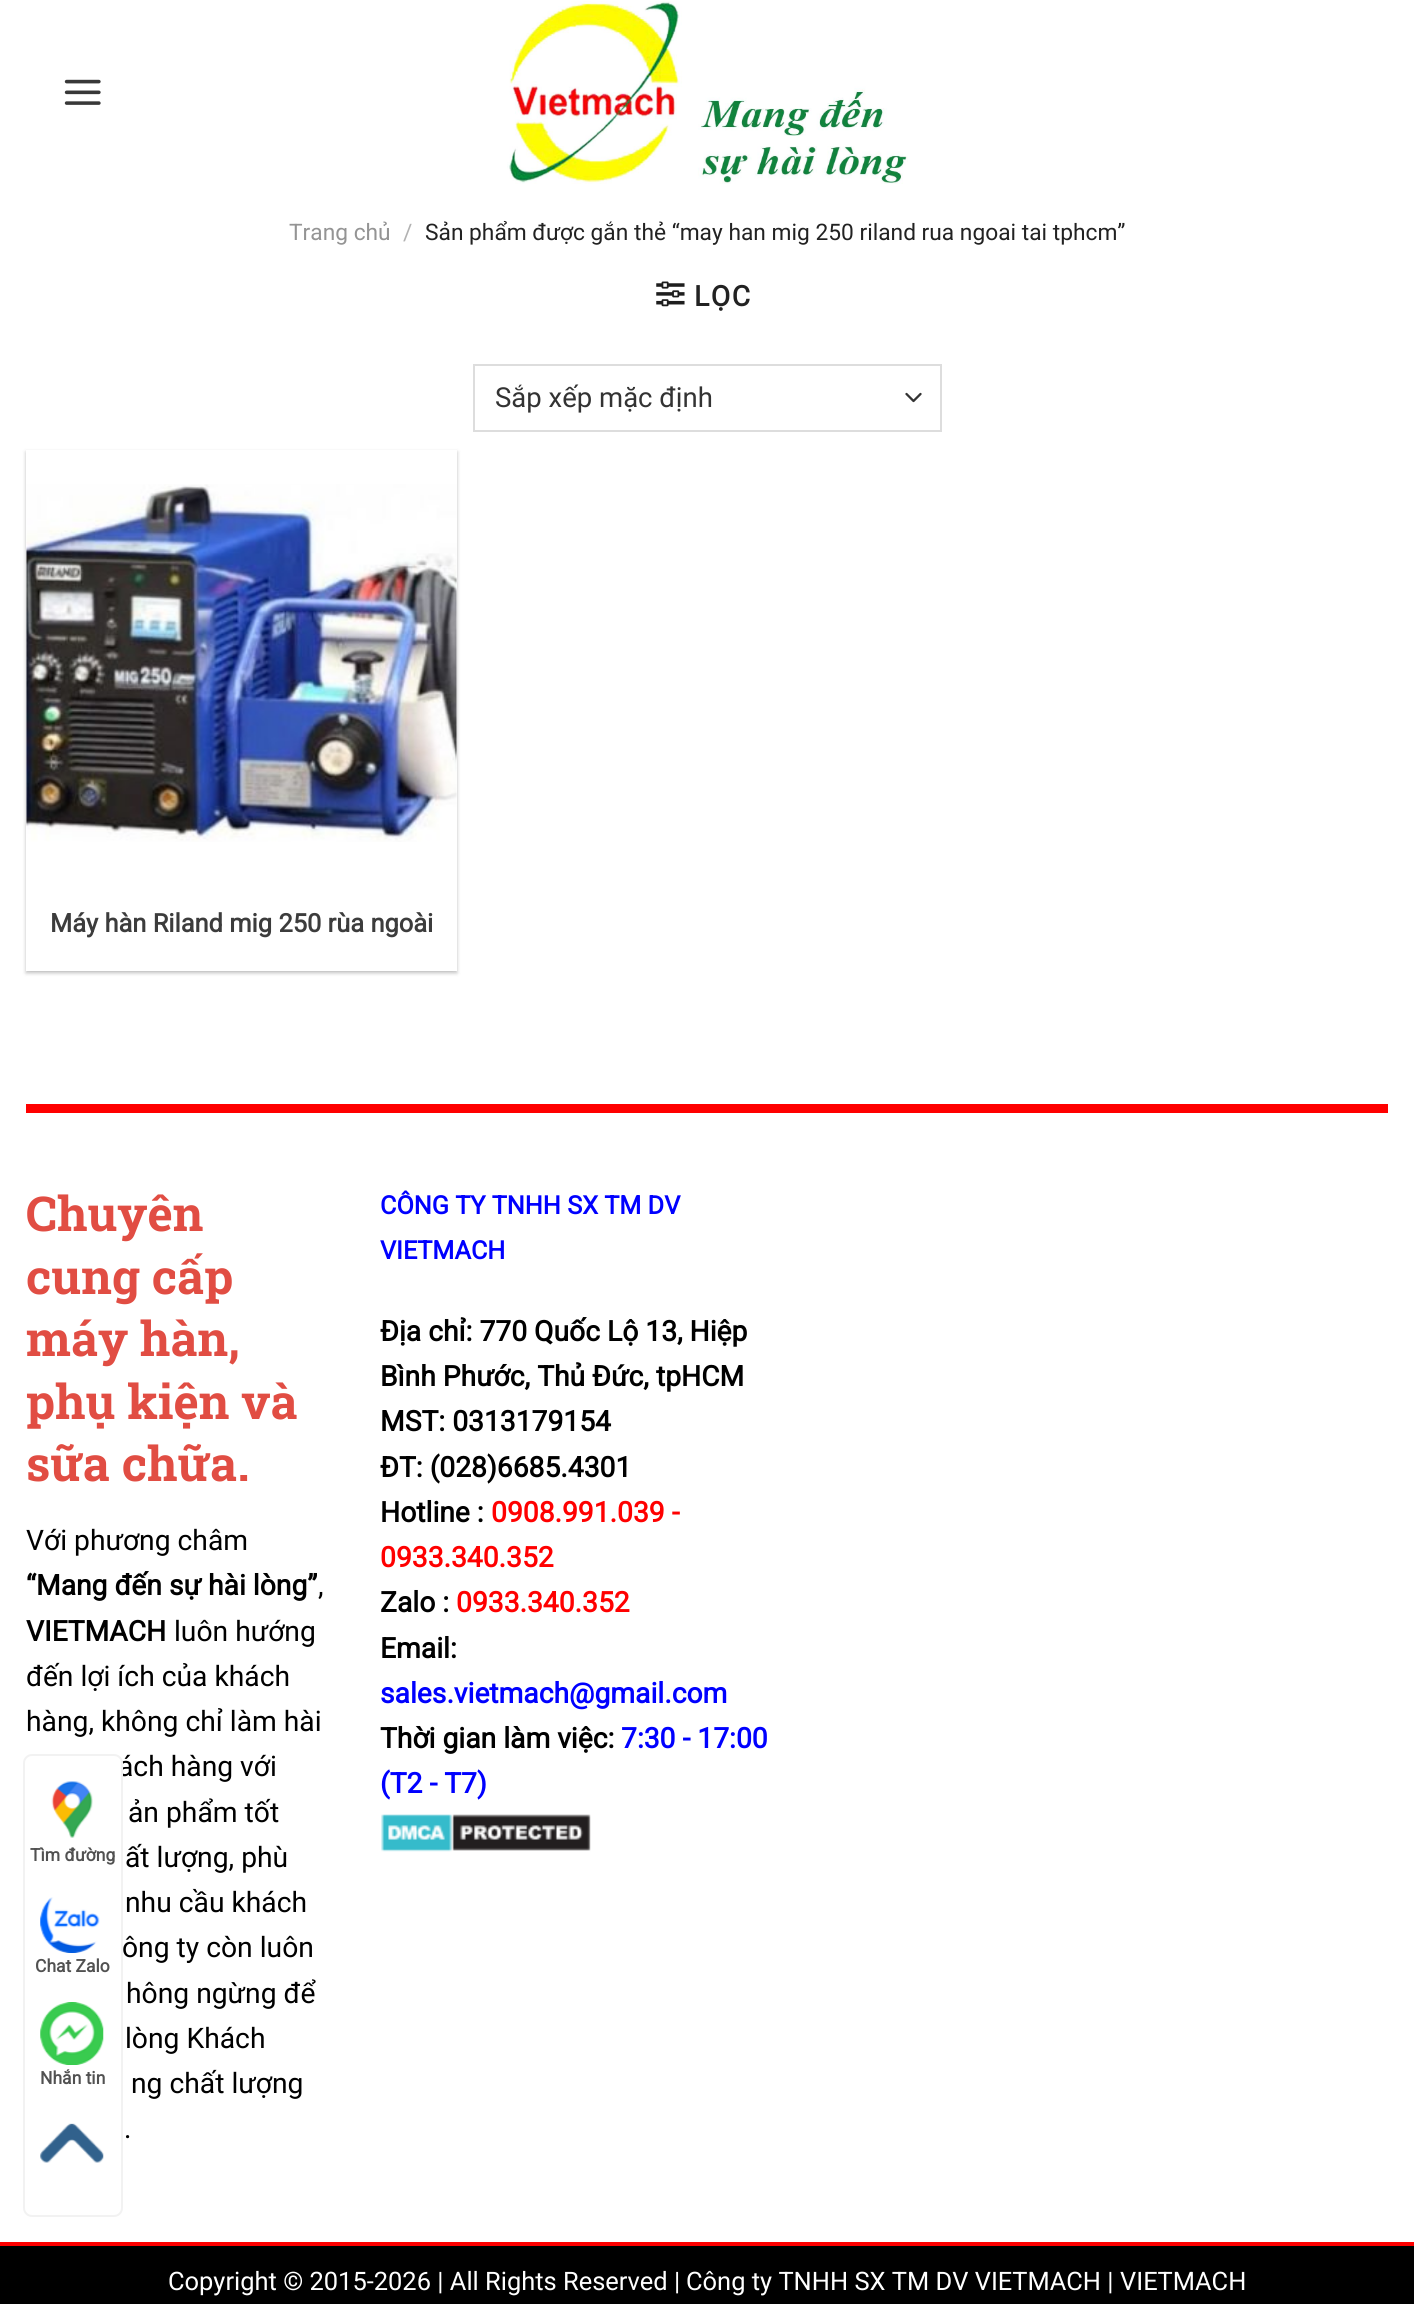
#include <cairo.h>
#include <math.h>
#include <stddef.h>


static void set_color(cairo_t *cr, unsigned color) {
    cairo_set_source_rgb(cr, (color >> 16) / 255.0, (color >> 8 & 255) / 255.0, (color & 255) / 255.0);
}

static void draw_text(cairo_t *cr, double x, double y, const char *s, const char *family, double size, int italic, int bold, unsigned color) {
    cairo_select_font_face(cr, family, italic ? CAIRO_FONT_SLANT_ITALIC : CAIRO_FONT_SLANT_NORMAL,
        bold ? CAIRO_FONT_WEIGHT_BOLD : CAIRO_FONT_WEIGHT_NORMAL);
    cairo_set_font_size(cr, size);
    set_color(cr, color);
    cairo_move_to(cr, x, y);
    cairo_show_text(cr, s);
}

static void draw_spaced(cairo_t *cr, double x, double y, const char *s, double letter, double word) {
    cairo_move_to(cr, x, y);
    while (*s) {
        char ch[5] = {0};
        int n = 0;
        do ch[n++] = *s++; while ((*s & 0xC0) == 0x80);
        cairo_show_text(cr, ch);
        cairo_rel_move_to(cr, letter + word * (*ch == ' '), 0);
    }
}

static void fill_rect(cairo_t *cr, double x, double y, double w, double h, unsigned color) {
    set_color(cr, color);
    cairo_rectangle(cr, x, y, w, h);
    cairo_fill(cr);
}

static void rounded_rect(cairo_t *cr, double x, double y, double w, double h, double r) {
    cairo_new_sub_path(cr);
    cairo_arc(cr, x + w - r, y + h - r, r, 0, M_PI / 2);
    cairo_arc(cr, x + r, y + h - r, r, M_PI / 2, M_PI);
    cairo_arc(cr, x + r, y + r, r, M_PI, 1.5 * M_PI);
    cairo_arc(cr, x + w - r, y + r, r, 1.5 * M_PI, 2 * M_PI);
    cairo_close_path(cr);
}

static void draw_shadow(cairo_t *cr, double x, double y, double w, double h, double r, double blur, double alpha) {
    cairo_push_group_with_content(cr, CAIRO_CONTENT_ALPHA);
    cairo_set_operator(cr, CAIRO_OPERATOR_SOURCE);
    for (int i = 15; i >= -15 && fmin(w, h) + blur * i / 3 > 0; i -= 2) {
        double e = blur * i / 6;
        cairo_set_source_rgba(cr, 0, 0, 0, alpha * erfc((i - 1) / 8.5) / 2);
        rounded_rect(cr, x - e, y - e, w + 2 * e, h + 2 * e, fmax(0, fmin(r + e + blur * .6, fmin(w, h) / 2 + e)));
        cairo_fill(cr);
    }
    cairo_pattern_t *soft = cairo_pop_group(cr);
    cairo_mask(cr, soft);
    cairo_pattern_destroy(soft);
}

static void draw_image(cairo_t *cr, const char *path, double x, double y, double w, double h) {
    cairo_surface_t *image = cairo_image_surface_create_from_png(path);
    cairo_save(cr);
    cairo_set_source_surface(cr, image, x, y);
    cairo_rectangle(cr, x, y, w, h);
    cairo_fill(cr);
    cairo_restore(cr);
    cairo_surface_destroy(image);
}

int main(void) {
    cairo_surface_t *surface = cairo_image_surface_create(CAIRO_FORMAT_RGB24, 1414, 2304);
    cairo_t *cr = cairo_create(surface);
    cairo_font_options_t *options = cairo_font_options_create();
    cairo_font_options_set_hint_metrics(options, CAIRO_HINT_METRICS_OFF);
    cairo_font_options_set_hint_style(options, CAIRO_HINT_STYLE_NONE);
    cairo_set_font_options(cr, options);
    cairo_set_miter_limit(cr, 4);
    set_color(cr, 0xFFFFFF);
    cairo_paint(cr);
    draw_image(cr, "assets/img1.png", 64, 79, 37, 26);
    draw_image(cr, "assets/img2.png", 507, 1, 401, 183);
    draw_text(cr, 289, 240, "Trang chủ", "Roboto", 22.75, 0, 0, 0x949494);
    draw_text(cr, 403, 240, "/", "Roboto", 22.75, 0, 0, 0xB2B2B2);
    draw_text(cr, 425, 240, "Sản phẩm được gắn thẻ “may han mig 250 riland rua ngoai tai tphcm”", "Roboto", 22.75, 0, 0, 0x222222);
    draw_image(cr, "assets/img3.png", 656, 281, 29, 26);
    cairo_select_font_face(cr, "Roboto", CAIRO_FONT_SLANT_NORMAL, CAIRO_FONT_WEIGHT_BOLD);
    cairo_set_font_size(cr, 28.25);
    draw_spaced(cr, 694, 306, "LỌC", 1.5, 0);
    cairo_new_path(cr);
    cairo_move_to(cr, 906.5, 394);
    cairo_line_to(cr, 913.5, 401);
    cairo_line_to(cr, 920.5, 394);
    set_color(cr, 0x333333);
    cairo_set_line_width(cr, 2.3);
    cairo_set_line_cap(cr, CAIRO_LINE_CAP_ROUND);
    cairo_set_line_join(cr, CAIRO_LINE_JOIN_ROUND);
    cairo_stroke(cr);
    cairo_rectangle(cr, 474, 365, 467, 66);
    set_color(cr, 0xDDDDDD);
    cairo_set_line_width(cr, 2);
    cairo_set_line_cap(cr, CAIRO_LINE_CAP_BUTT);
    cairo_set_line_join(cr, CAIRO_LINE_JOIN_MITER);
    cairo_stroke(cr);
    draw_text(cr, 495, 407, "Sắp xếp mặc định", "Roboto", 27.5, 0, 0, 0x333333);
    set_color(cr, 0x000000);
    draw_shadow(cr, 26, 452, 431, 521, 0, 2, 0.24);
    draw_shadow(cr, 30, 455, 423, 515, 0, 2.5, 0.12);
    fill_rect(cr, 26, 450, 431, 521, 0xFFFFFF);
    draw_image(cr, "assets/img4.png", 26, 484, 431, 358);
    draw_text(cr, 50, 932, "Máy hàn Riland mig 250 rùa ngoài", "Roboto", 25.45, 0, 1, 0x3C3C3C);
    fill_rect(cr, 26, 1104, 1362, 9, 0xFF0000);
    draw_text(cr, 26, 1231, "Chuyên", "Roboto Slab", 48, 0, 1, 0xE14D43);
    draw_text(cr, 26, 1294, "cung cấp", "Roboto Slab", 48, 0, 1, 0xE14D43);
    draw_text(cr, 26, 1356, "máy hàn,", "Roboto Slab", 48, 0, 1, 0xE14D43);
    draw_text(cr, 26, 1419, "phụ kiện và", "Roboto Slab", 48, 0, 1, 0xE14D43);
    draw_text(cr, 26, 1481, "sữa chữa.", "Roboto Slab", 48, 0, 1, 0xE14D43);
    draw_text(cr, 26, 1550, "Với phương châm", "Roboto", 28.25, 0, 0, 0x000000);
    draw_text(cr, 26, 1595, "“Mang đến sự hài lòng”", "Roboto", 28.25, 0, 1, 0x000000);
    draw_text(cr, 318, 1595, ",", "Roboto", 28.25, 0, 0, 0x000000);
    draw_text(cr, 26, 1641, "VIETMACH", "Roboto", 28.25, 0, 1, 0x000000);
    draw_text(cr, 174, 1641, "luôn hướng", "Roboto", 28.25, 0, 0, 0x000000);
    draw_text(cr, 26, 1686, "đến lợi ích của khách", "Roboto", 28.25, 0, 0, 0x000000);
    draw_text(cr, 26, 1731, "hàng, không chỉ làm hài", "Roboto", 28.25, 0, 0, 0x000000);
    draw_text(cr, 118, 1776, "ách hàng với", "Roboto", 28.25, 0, 0, 0x000000);
    draw_text(cr, 128, 1822, "ản phẩm tốt", "Roboto", 28.25, 0, 0, 0x000000);
    draw_text(cr, 125, 1867, "ất lượng, phù", "Roboto", 28.25, 0, 0, 0x000000);
    draw_text(cr, 125, 1912, "nhu cầu khách", "Roboto", 28.25, 0, 0, 0x000000);
    draw_text(cr, 122, 1957, "ông ty còn luôn", "Roboto", 28.25, 0, 0, 0x000000);
    draw_text(cr, 126, 2003, "hông ngừng để", "Roboto", 28.25, 0, 0, 0x000000);
    draw_text(cr, 125, 2048, "lòng Khách", "Roboto", 28.25, 0, 0, 0x000000);
    draw_text(cr, 131, 2093, "ng chất lượng", "Roboto", 28.25, 0, 0, 0x000000);
    draw_text(cr, 124, 2138, ".", "Roboto", 28.25, 0, 0, 0x000000);
    draw_text(cr, 380, 1214, "CÔNG TY TNHH SX TM DV", "Roboto", 25.25, 0, 1, 0x0000FF);
    draw_text(cr, 380, 1259, "VIETMACH", "Roboto", 25.25, 0, 1, 0x0000FF);
    draw_text(cr, 380, 1341, "Địa chỉ: 770 Quốc Lộ 13, Hiệp", "Roboto", 28.25, 0, 1, 0x000000);
    draw_text(cr, 380, 1386, "Bình Phước, Thủ Đức, tpHCM", "Roboto", 28.25, 0, 1, 0x000000);
    draw_text(cr, 380, 1431, "MST: 0313179154", "Roboto", 28.25, 0, 1, 0x000000);
    draw_text(cr, 380, 1477, "ĐT: (028)6685.4301", "Roboto", 28.25, 0, 1, 0x000000);
    draw_text(cr, 380, 1522, "Hotline :", "Roboto", 28.25, 0, 1, 0x000000);
    draw_text(cr, 491, 1522, "0908.991.039 -", "Roboto", 28.25, 0, 1, 0xFF0000);
    draw_text(cr, 380, 1567, "0933.340.352", "Roboto", 28.25, 0, 1, 0xFF0000);
    draw_text(cr, 380, 1612, "Zalo :", "Roboto", 28.25, 0, 1, 0x000000);
    draw_text(cr, 456, 1612, "0933.340.352", "Roboto", 28.25, 0, 1, 0xFF0000);
    draw_text(cr, 380, 1658, "Email:", "Roboto", 28.25, 0, 1, 0x000000);
    draw_text(cr, 380, 1703, "sales.vietmach@gmail.com", "Roboto", 28.25, 0, 1, 0x0000FF);
    draw_text(cr, 380, 1748, "Thời gian làm việc:", "Roboto", 28.25, 0, 1, 0x000000);
    draw_text(cr, 621, 1748, "7:30 - 17:00", "Roboto", 28.25, 0, 1, 0x0000FF);
    draw_text(cr, 380, 1793, "(T2 - T7)", "Roboto", 28.25, 0, 1, 0x0000FF);
    draw_image(cr, "assets/img5.png", 381, 1814, 210, 38);
    fill_rect(cr, 0, 2246, 1414, 58, 0x000000);
    fill_rect(cr, 0, 2242, 1414, 4, 0xFF0000);
    draw_text(cr, 168, 2290, "Copyright © 2015-2026 | All Rights Reserved |", "Roboto", 25.45, 0, 0, 0xFFFFFF);
    draw_text(cr, 686, 2290, "Công ty TNHH SX TM DV VIETMACH |", "Roboto", 25.45, 0, 0, 0xFFFFFF);
    draw_text(cr, 1120, 2290, "VIETMACH", "Roboto", 25.45, 0, 0, 0xFFFFFF);
    rounded_rect(cr, 24, 1755, 98, 461, 8);
    cairo_fill_preserve(cr);
    set_color(cr, 0xF2F2F2);
    cairo_stroke(cr);
    draw_image(cr, "assets/img6.png", 51, 1781, 42, 57);
    draw_text(cr, 30, 1861, "Tìm đường", "Roboto", 17.5, 0, 1, 0x515151);
    draw_image(cr, "assets/img7.png", 40, 1897, 60, 56);
    draw_text(cr, 35, 1972, "Chat Zalo", "Roboto", 17.5, 0, 1, 0x515151);
    draw_image(cr, "assets/img8.png", 40, 2002, 64, 63);
    draw_text(cr, 40, 2084, "Nhắn tin", "Roboto", 17.5, 0, 1, 0x515151);
    draw_image(cr, "assets/img9.png", 40, 2123, 64, 40);
    cairo_surface_write_to_png(surface, "output.png");
    cairo_font_options_destroy(options);
    cairo_destroy(cr);
    cairo_surface_destroy(surface);
    return 0;
}
